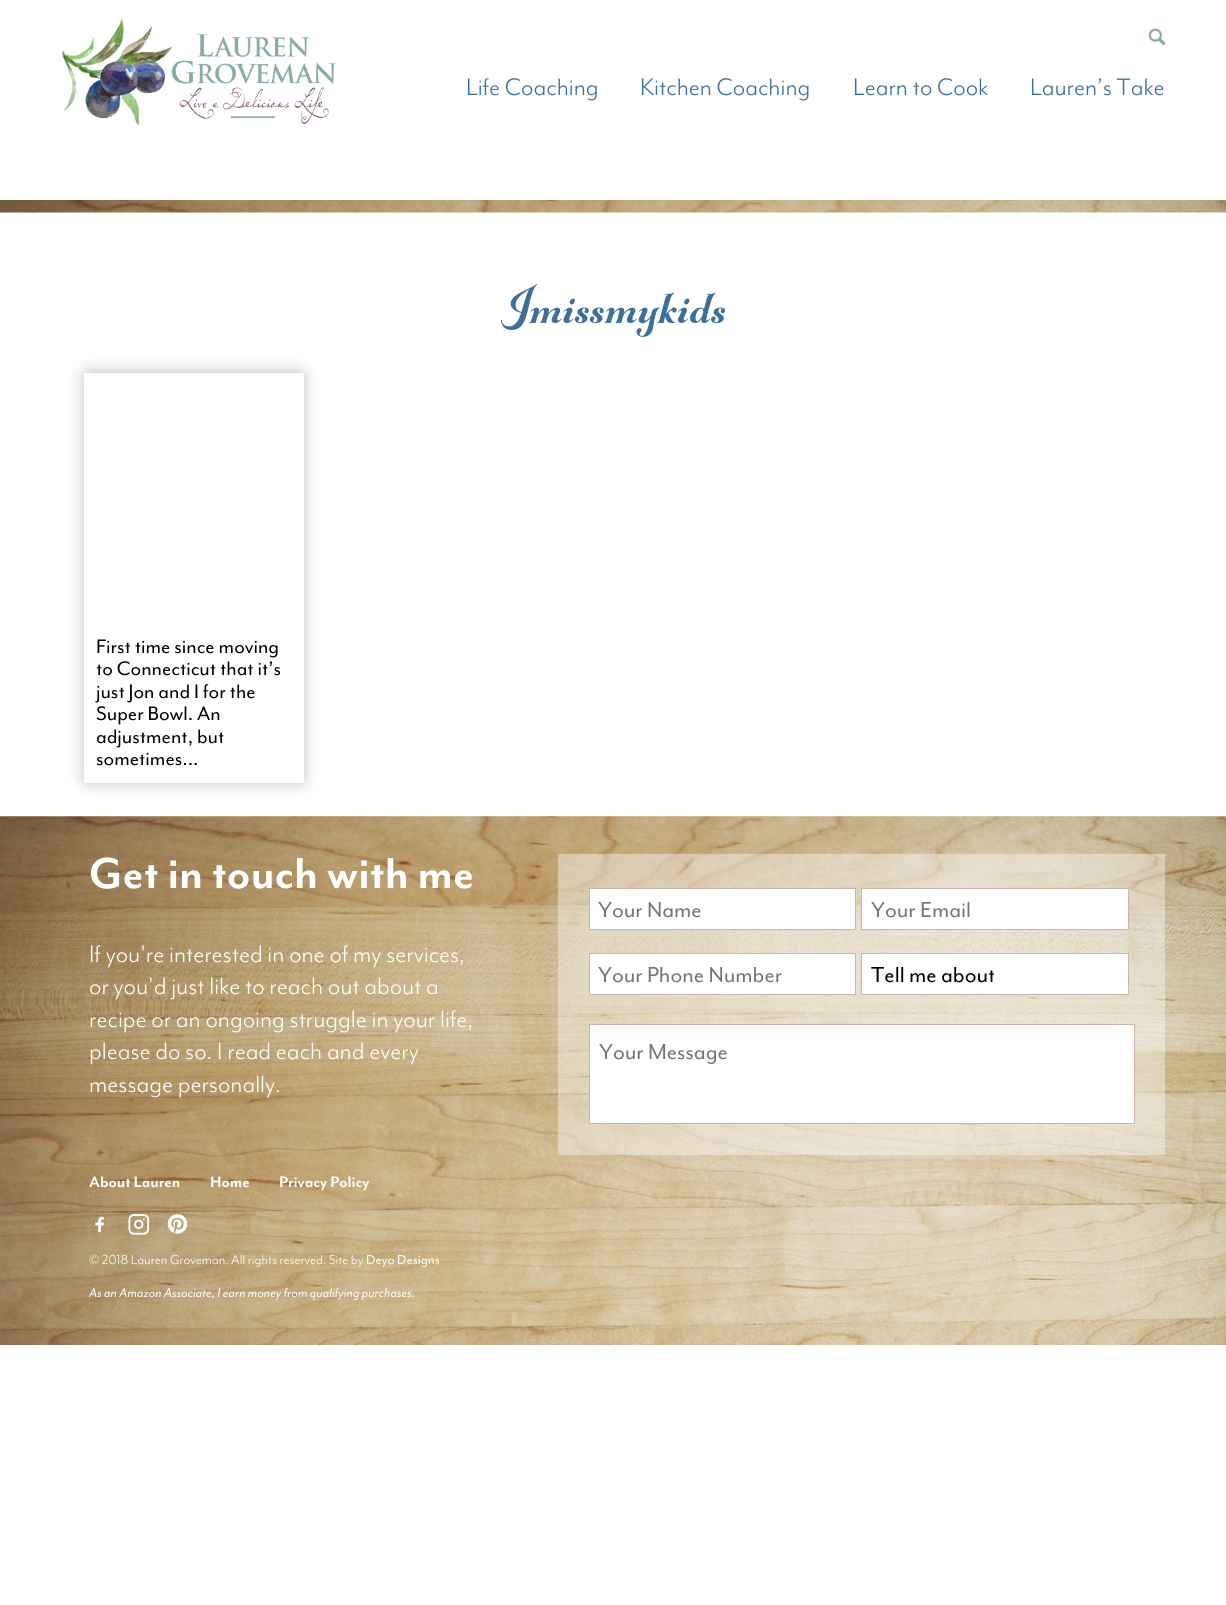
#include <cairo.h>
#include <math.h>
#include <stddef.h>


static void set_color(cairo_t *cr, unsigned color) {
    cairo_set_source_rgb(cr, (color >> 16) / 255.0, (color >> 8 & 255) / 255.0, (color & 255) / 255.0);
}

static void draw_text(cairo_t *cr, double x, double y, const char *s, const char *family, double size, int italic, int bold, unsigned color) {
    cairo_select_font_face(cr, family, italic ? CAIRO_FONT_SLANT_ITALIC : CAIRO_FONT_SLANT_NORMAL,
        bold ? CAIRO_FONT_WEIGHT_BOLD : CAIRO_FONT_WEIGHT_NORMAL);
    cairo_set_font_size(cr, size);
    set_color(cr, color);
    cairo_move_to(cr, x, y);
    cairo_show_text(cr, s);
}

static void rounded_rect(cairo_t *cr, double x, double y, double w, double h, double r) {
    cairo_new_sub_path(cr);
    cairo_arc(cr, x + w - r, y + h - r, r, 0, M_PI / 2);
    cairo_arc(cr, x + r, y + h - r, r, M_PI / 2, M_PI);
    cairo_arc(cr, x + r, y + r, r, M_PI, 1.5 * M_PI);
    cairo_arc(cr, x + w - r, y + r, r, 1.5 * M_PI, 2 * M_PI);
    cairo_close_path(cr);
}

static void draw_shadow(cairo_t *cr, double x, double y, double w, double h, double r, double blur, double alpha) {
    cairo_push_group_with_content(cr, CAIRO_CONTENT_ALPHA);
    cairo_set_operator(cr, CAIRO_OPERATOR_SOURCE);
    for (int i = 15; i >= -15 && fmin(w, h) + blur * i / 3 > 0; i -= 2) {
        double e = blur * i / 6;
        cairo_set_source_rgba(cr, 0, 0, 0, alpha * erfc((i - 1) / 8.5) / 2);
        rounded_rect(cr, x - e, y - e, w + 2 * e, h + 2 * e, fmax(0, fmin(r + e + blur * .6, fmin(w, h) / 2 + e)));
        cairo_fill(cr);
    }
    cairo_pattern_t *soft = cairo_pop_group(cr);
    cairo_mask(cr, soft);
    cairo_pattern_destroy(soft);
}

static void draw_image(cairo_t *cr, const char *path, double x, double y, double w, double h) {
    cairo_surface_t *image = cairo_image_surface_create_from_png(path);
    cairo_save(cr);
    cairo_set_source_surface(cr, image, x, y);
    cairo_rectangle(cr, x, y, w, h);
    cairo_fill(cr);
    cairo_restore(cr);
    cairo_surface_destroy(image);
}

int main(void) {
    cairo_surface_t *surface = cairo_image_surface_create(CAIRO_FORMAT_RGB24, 1226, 1605);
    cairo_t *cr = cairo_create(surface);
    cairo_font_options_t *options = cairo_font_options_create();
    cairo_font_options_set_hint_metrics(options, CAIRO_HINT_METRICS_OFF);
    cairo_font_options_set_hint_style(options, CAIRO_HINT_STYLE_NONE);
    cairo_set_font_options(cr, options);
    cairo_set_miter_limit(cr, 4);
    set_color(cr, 0xFFFFFF);
    cairo_paint(cr);
    draw_image(cr, "assets/img1.png", 62, 18, 274, 107);
    draw_image(cr, "assets/img2.png", 1148, 28, 18, 18);
    draw_text(cr, 466, 95, "Life Coaching", "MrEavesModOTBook", 27.5, 0, 0, 0x3C709A);
    draw_text(cr, 640, 95, "Kitchen Coaching", "MrEavesModOTBook", 27.5, 0, 0, 0x3C709A);
    draw_text(cr, 853, 95, "Learn to Cook", "MrEavesModOTBook", 27.5, 0, 0, 0x3C709A);
    draw_text(cr, 1030, 95, "Lauren’s Take", "MrEavesModOTBook", 27.5, 0, 0, 0x3C709A);
    draw_image(cr, "assets/img3.png", 0, 200, 1226, 13);
    draw_text(cr, 501, 323, "Imissmykids", "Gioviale", 62.5, 0, 1, 0x3C709A);
    cairo_save(cr);
    cairo_set_fill_rule(cr, CAIRO_FILL_RULE_EVEN_ODD);
    cairo_new_path(cr);
    cairo_move_to(cr, 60, 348);
    cairo_line_to(cr, 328, 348);
    cairo_line_to(cr, 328, 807);
    cairo_line_to(cr, 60, 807);
    cairo_close_path(cr);
    cairo_move_to(cr, 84, 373);
    cairo_line_to(cr, 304, 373);
    cairo_line_to(cr, 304, 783);
    cairo_line_to(cr, 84, 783);
    cairo_close_path(cr);
    cairo_clip(cr);
    set_color(cr, 0x000000);
    draw_shadow(cr, 88, 376, 212, 403, 0, 9, 0.41);
    cairo_restore(cr);
    draw_text(cr, 96, 653, "First time since moving", "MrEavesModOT", 22.5, 0, 0, 0x000000);
    draw_text(cr, 96, 675, "to Connecticut that it’s", "MrEavesModOT", 22.5, 0, 0, 0x000000);
    draw_text(cr, 96, 698, "just Jon and I for the", "MrEavesModOT", 22.5, 0, 0, 0x000000);
    draw_text(cr, 96, 720, "Super Bowl. An", "MrEavesModOT", 22.5, 0, 0, 0x000000);
    draw_text(cr, 96, 743, "adjustment, but", "MrEavesModOT", 22.5, 0, 0, 0x000000);
    draw_text(cr, 96, 765, "sometimes...", "MrEavesModOT", 22.5, 0, 0, 0x000000);
    draw_image(cr, "assets/img4.png", 0, 816, 1226, 529);
    draw_text(cr, 89, 888, "Get in touch with me", "MrEavesModOT", 50, 0, 1, 0xFFFFFF);
    draw_text(cr, 89, 962, "If you're interested in one of my services,", "MrEavesModOTBook", 27.5, 0, 0, 0xFFFFFF);
    draw_text(cr, 89, 994, "or you'd just like to reach out about a", "MrEavesModOTBook", 27.5, 0, 0, 0xFFFFFF);
    draw_text(cr, 89, 1027, "recipe or an ongoing struggle in your life,", "MrEavesModOTBook", 27.5, 0, 0, 0xFFFFFF);
    draw_text(cr, 89, 1059, "please do so. I read each and every", "MrEavesModOTBook", 27.5, 0, 0, 0xFFFFFF);
    draw_text(cr, 89, 1092, "message personally.", "MrEavesModOTBook", 27.5, 0, 0, 0xFFFFFF);
    draw_text(cr, 89, 1187, "About Lauren", "MrEavesModOT", 17.5, 0, 1, 0xFFFFFF);
    draw_text(cr, 210, 1187, "Home", "MrEavesModOT", 17.5, 0, 1, 0xFFFFFF);
    draw_text(cr, 279, 1187, "Privacy Policy", "MrEavesModOT", 17.5, 0, 1, 0xFFFFFF);
    draw_image(cr, "assets/img5.png", 95, 1216, 9, 16);
    draw_image(cr, "assets/img6.png", 128, 1214, 22, 21);
    draw_image(cr, "assets/img7.png", 167, 1214, 21, 20);
    draw_text(cr, 89, 1264, "© 2018 Lauren Groveman. All rights reserved. Site by", "MrEavesModOTBook", 15, 0, 0, 0xFFFFFF);
    draw_text(cr, 366, 1264, "Deyo Designs", "MrEavesModOT", 15, 0, 0, 0xFFFFFF);
    draw_text(cr, 89, 1297, "As an Amazon Associate, I earn money from qualifying purchases.", "MrEavesModOT", 15, 1, 0, 0xFFFFFF);
    cairo_set_source_rgba(cr, 0.992, 0.992, 0.992, 0.4);
    cairo_rectangle(cr, 558, 854, 607, 301);
    cairo_fill(cr);
    set_color(cr, 0xFFFFFF);
    cairo_rectangle(cr, 589.5, 888.5, 266, 41);
    cairo_fill_preserve(cr);
    set_color(cr, 0xCCB6AA);
    cairo_set_line_width(cr, 1);
    cairo_stroke(cr);
    draw_text(cr, 598, 917, "Your Name", "MrEavesModOT", 25, 0, 0, 0x757575);
    set_color(cr, 0xFFFFFF);
    cairo_rectangle(cr, 861.5, 888.5, 267, 41);
    cairo_fill_preserve(cr);
    set_color(cr, 0xCCB6AA);
    cairo_stroke(cr);
    draw_text(cr, 871, 917, "Your Email", "MrEavesModOT", 25, 0, 0, 0x757575);
    set_color(cr, 0xFFFFFF);
    cairo_rectangle(cr, 589.5, 953.5, 266, 41);
    cairo_fill_preserve(cr);
    set_color(cr, 0xCCB6AA);
    cairo_stroke(cr);
    draw_text(cr, 598, 982, "Your Phone Number", "MrEavesModOT", 25, 0, 0, 0x757575);
    set_color(cr, 0xFFFFFF);
    cairo_rectangle(cr, 861.5, 953.5, 267, 41);
    cairo_fill_preserve(cr);
    set_color(cr, 0xCCB6AA);
    cairo_stroke(cr);
    draw_text(cr, 871, 982, "Tell me about", "MrEavesModOT", 25, 0, 0, 0x000000);
    set_color(cr, 0xFFFFFF);
    cairo_rectangle(cr, 589.5, 1024.5, 545, 99);
    cairo_fill_preserve(cr);
    set_color(cr, 0xCCB6AA);
    cairo_stroke(cr);
    draw_text(cr, 599, 1059, "Your Message", "MrEavesModOT", 25, 0, 0, 0x757575);
    cairo_surface_write_to_png(surface, "output.png");
    cairo_font_options_destroy(options);
    cairo_destroy(cr);
    cairo_surface_destroy(surface);
    return 0;
}
